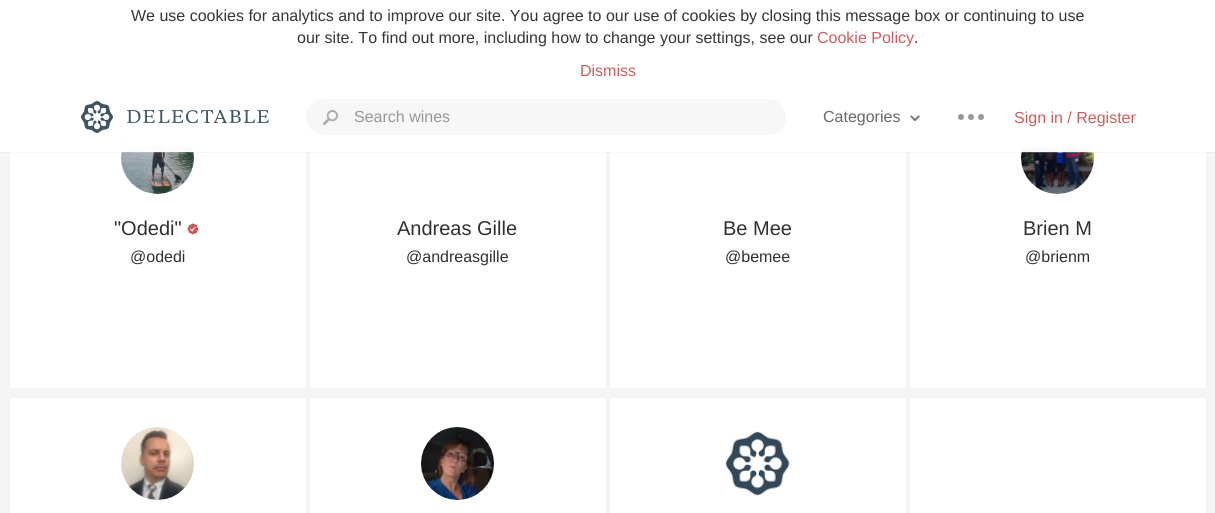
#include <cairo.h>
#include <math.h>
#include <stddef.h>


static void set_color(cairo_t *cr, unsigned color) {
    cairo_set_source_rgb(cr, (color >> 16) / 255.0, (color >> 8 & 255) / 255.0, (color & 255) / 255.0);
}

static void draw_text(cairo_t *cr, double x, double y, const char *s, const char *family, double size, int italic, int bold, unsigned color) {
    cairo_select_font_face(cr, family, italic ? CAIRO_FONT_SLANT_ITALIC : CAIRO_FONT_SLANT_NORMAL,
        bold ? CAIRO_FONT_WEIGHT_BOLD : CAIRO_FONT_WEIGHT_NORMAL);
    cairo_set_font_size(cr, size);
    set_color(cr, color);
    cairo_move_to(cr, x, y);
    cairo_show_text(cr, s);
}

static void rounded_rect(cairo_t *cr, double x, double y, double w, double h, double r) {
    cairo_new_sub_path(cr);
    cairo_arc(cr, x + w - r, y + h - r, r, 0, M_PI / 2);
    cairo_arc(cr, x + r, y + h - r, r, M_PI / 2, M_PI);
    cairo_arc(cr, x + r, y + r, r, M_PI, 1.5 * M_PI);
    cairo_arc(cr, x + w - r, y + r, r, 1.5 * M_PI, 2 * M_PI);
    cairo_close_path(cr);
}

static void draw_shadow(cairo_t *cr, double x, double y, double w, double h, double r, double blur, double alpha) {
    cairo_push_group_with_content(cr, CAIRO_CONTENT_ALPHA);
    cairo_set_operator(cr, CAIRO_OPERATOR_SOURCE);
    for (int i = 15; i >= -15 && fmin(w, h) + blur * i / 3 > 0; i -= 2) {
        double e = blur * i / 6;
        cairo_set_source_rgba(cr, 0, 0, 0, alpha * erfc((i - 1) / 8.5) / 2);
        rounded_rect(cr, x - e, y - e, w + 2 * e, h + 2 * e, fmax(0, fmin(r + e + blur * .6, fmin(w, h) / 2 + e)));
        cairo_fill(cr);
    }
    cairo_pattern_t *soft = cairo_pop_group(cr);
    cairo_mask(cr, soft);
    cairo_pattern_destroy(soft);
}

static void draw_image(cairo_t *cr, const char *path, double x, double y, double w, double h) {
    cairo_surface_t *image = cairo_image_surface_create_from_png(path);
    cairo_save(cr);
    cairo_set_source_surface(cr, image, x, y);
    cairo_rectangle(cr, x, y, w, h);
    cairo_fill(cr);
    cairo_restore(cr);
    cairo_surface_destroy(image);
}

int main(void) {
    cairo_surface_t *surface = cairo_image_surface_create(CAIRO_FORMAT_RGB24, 1215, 513);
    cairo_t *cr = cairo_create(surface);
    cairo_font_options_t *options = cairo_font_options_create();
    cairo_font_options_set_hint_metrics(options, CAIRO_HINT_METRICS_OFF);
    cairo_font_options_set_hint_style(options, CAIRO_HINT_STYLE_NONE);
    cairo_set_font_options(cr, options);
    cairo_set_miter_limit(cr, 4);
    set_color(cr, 0xF5F5F5);
    cairo_paint(cr);
    set_color(cr, 0xFFFFFF);
    cairo_new_path(cr);
    cairo_move_to(cr, 12, 91);
    cairo_line_to(cr, 304, 91);
    cairo_curve_to(cr, 305.5, 91, 307, 92.5, 307, 94);
    cairo_line_to(cr, 307, 389);
    cairo_line_to(cr, 9, 389);
    cairo_line_to(cr, 9, 94);
    cairo_curve_to(cr, 9, 92.5, 10.5, 91, 12, 91);
    cairo_close_path(cr);
    cairo_fill_preserve(cr);
    set_color(cr, 0xF5F5F5);
    cairo_stroke(cr);
    draw_image(cr, "assets/img4.png", 121, 121, 73, 73);
    set_color(cr, 0xFFFFFF);
    cairo_new_path(cr);
    cairo_move_to(cr, 312, 91);
    cairo_line_to(cr, 604, 91);
    cairo_curve_to(cr, 605.5, 91, 607, 92.5, 607, 94);
    cairo_line_to(cr, 607, 389);
    cairo_line_to(cr, 309, 389);
    cairo_line_to(cr, 309, 94);
    cairo_curve_to(cr, 309, 92.5, 310.5, 91, 312, 91);
    cairo_close_path(cr);
    cairo_fill_preserve(cr);
    set_color(cr, 0xF5F5F5);
    cairo_stroke(cr);
    set_color(cr, 0xFFFFFF);
    cairo_new_path(cr);
    cairo_move_to(cr, 612, 91);
    cairo_line_to(cr, 904, 91);
    cairo_curve_to(cr, 905.5, 91, 907, 92.5, 907, 94);
    cairo_line_to(cr, 907, 389);
    cairo_line_to(cr, 609, 389);
    cairo_line_to(cr, 609, 94);
    cairo_curve_to(cr, 609, 92.5, 610.5, 91, 612, 91);
    cairo_close_path(cr);
    cairo_fill_preserve(cr);
    set_color(cr, 0xF5F5F5);
    cairo_stroke(cr);
    set_color(cr, 0xFFFFFF);
    cairo_new_path(cr);
    cairo_move_to(cr, 912, 91);
    cairo_line_to(cr, 1204, 91);
    cairo_curve_to(cr, 1205.5, 91, 1207, 92.5, 1207, 94);
    cairo_line_to(cr, 1207, 389);
    cairo_line_to(cr, 909, 389);
    cairo_line_to(cr, 909, 94);
    cairo_curve_to(cr, 909, 92.5, 910.5, 91, 912, 91);
    cairo_close_path(cr);
    cairo_fill_preserve(cr);
    set_color(cr, 0xF5F5F5);
    cairo_stroke(cr);
    draw_image(cr, "assets/img6.png", 1021, 121, 73, 73);
    cairo_save(cr);
    cairo_rectangle(cr, 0, 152, 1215, 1);
    cairo_clip(cr);
    set_color(cr, 0xDEDEDE);
    draw_shadow(cr, 0, 0, 1215, 152, 0, 0.5, 0.97);
    cairo_restore(cr);
    cairo_set_source_rgba(cr, 1, 1, 1, 0.97);
    cairo_rectangle(cr, 0, 0, 1215, 152);
    cairo_fill(cr);
    draw_text(cr, 131, 21, "We use cookies for analytics and to improve our site. You agree to our use of cookies by closing this message box or continuing to use", "Liberation Sans", 16, 0, 0, 0x363636);
    draw_text(cr, 297, 43, "our site. To find out more, including how to change your settings, see our", "Liberation Sans", 16, 0, 0, 0x363636);
    draw_text(cr, 817, 43, "Cookie Policy", "Liberation Sans", 16, 0, 0, 0xCE5E5F);
    draw_text(cr, 914, 43, ".", "Liberation Sans", 16, 0, 0, 0x363636);
    draw_text(cr, 580, 76, "Dismiss", "Liberation Sans", 16, 0, 0, 0xCE5E5F);
    cairo_set_source_rgba(cr, 1, 1, 1, 0.94);
    cairo_rectangle(cr, 127, 121, 965, 26);
    cairo_fill(cr);
    draw_image(cr, "assets/img1.png", 81, 101, 188, 32);
    set_color(cr, 0xF7F7F7);
    rounded_rect(cr, 306, 99, 480, 36, 18);
    cairo_fill(cr);
    draw_image(cr, "assets/img2.png", 323, 110, 15, 15);
    draw_text(cr, 354, 122, "Search wines", "Liberation Sans", 16, 0, 0, 0x979797);
    draw_text(cr, 823, 122, "Categories", "Liberation Sans", 16, 0, 0, 0x696969);
    draw_image(cr, "assets/img3.png", 910, 115, 10, 7);
    set_color(cr, 0x979797);
    cairo_arc(cr, 971, 117, 3, 0, 2 * M_PI);
    cairo_fill(cr);
    cairo_arc(cr, 961, 117, 3, 0, 2 * M_PI);
    cairo_fill(cr);
    cairo_arc(cr, 981, 117, 3, 0, 2 * M_PI);
    cairo_fill(cr);
    draw_text(cr, 1014, 123, "Sign in / Register", "Liberation Sans", 16, 0, 0, 0xCE5E5F);
    draw_text(cr, 114, 235, "\"Odedi\"", "Liberation Sans", 20, 0, 0, 0x303030);
    draw_image(cr, "assets/img5.png", 187, 223, 12, 12);
    draw_text(cr, 130, 262, "@odedi", "Liberation Sans", 16, 0, 0, 0x303030);
    draw_text(cr, 397, 235, "Andreas Gille", "Liberation Sans", 20, 0, 0, 0x303030);
    draw_text(cr, 406, 262, "@andreasgille", "Liberation Sans", 16, 0, 0, 0x303030);
    draw_text(cr, 723, 235, "Be Mee", "Liberation Sans", 20, 0, 0, 0x303030);
    draw_text(cr, 725, 262, "@bemee", "Liberation Sans", 16, 0, 0, 0x303030);
    draw_text(cr, 1023, 235, "Brien M", "Liberation Sans", 20, 0, 0, 0x303030);
    draw_text(cr, 1025, 262, "@brienm", "Liberation Sans", 16, 0, 0, 0x303030);
    set_color(cr, 0xFFFFFF);
    cairo_new_path(cr);
    cairo_move_to(cr, 12, 397);
    cairo_line_to(cr, 304, 397);
    cairo_curve_to(cr, 305.5, 397, 307, 398.5, 307, 400);
    cairo_line_to(cr, 307, 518);
    cairo_line_to(cr, 9, 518);
    cairo_line_to(cr, 9, 400);
    cairo_curve_to(cr, 9, 398.5, 10.5, 397, 12, 397);
    cairo_close_path(cr);
    cairo_fill_preserve(cr);
    set_color(cr, 0xF5F5F5);
    cairo_stroke(cr);
    draw_image(cr, "assets/img7.png", 121, 427, 73, 73);
    set_color(cr, 0xFFFFFF);
    cairo_new_path(cr);
    cairo_move_to(cr, 312, 397);
    cairo_line_to(cr, 604, 397);
    cairo_curve_to(cr, 605.5, 397, 607, 398.5, 607, 400);
    cairo_line_to(cr, 607, 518);
    cairo_line_to(cr, 309, 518);
    cairo_line_to(cr, 309, 400);
    cairo_curve_to(cr, 309, 398.5, 310.5, 397, 312, 397);
    cairo_close_path(cr);
    cairo_fill_preserve(cr);
    set_color(cr, 0xF5F5F5);
    cairo_stroke(cr);
    draw_image(cr, "assets/img8.png", 421, 427, 73, 73);
    set_color(cr, 0xFFFFFF);
    cairo_new_path(cr);
    cairo_move_to(cr, 612, 397);
    cairo_line_to(cr, 904, 397);
    cairo_curve_to(cr, 905.5, 397, 907, 398.5, 907, 400);
    cairo_line_to(cr, 907, 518);
    cairo_line_to(cr, 609, 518);
    cairo_line_to(cr, 609, 400);
    cairo_curve_to(cr, 609, 398.5, 610.5, 397, 612, 397);
    cairo_close_path(cr);
    cairo_fill_preserve(cr);
    set_color(cr, 0xF5F5F5);
    cairo_stroke(cr);
    draw_image(cr, "assets/img9.png", 725, 431, 66, 66);
    set_color(cr, 0xFFFFFF);
    cairo_new_path(cr);
    cairo_move_to(cr, 912, 397);
    cairo_line_to(cr, 1204, 397);
    cairo_curve_to(cr, 1205.5, 397, 1207, 398.5, 1207, 400);
    cairo_line_to(cr, 1207, 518);
    cairo_line_to(cr, 909, 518);
    cairo_line_to(cr, 909, 400);
    cairo_curve_to(cr, 909, 398.5, 910.5, 397, 912, 397);
    cairo_close_path(cr);
    cairo_fill_preserve(cr);
    set_color(cr, 0xF5F5F5);
    cairo_stroke(cr);
    cairo_surface_write_to_png(surface, "output.png");
    cairo_font_options_destroy(options);
    cairo_destroy(cr);
    cairo_surface_destroy(surface);
    return 0;
}
